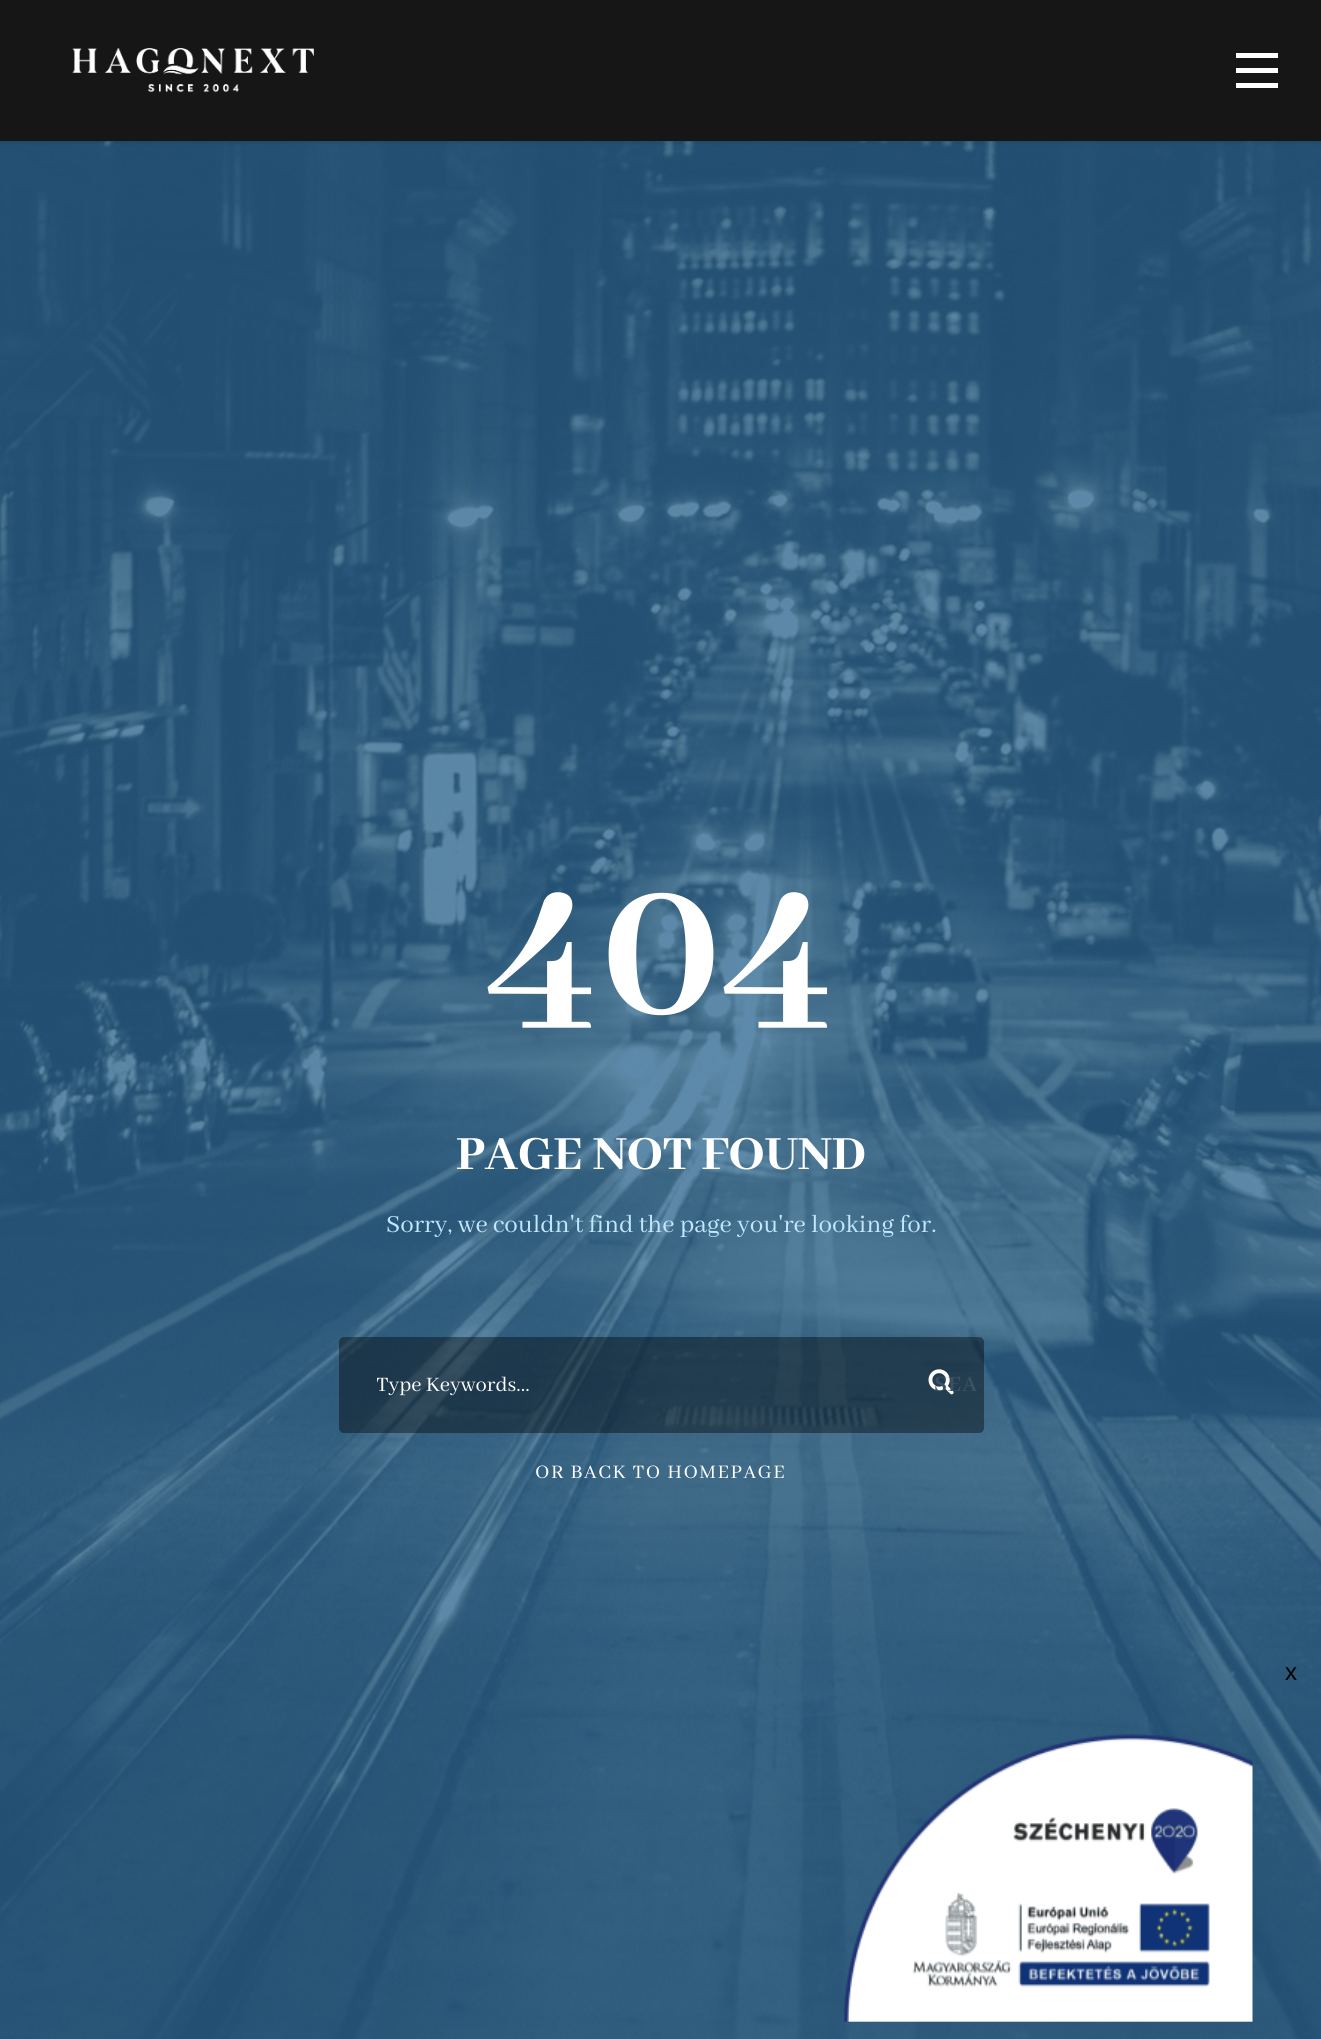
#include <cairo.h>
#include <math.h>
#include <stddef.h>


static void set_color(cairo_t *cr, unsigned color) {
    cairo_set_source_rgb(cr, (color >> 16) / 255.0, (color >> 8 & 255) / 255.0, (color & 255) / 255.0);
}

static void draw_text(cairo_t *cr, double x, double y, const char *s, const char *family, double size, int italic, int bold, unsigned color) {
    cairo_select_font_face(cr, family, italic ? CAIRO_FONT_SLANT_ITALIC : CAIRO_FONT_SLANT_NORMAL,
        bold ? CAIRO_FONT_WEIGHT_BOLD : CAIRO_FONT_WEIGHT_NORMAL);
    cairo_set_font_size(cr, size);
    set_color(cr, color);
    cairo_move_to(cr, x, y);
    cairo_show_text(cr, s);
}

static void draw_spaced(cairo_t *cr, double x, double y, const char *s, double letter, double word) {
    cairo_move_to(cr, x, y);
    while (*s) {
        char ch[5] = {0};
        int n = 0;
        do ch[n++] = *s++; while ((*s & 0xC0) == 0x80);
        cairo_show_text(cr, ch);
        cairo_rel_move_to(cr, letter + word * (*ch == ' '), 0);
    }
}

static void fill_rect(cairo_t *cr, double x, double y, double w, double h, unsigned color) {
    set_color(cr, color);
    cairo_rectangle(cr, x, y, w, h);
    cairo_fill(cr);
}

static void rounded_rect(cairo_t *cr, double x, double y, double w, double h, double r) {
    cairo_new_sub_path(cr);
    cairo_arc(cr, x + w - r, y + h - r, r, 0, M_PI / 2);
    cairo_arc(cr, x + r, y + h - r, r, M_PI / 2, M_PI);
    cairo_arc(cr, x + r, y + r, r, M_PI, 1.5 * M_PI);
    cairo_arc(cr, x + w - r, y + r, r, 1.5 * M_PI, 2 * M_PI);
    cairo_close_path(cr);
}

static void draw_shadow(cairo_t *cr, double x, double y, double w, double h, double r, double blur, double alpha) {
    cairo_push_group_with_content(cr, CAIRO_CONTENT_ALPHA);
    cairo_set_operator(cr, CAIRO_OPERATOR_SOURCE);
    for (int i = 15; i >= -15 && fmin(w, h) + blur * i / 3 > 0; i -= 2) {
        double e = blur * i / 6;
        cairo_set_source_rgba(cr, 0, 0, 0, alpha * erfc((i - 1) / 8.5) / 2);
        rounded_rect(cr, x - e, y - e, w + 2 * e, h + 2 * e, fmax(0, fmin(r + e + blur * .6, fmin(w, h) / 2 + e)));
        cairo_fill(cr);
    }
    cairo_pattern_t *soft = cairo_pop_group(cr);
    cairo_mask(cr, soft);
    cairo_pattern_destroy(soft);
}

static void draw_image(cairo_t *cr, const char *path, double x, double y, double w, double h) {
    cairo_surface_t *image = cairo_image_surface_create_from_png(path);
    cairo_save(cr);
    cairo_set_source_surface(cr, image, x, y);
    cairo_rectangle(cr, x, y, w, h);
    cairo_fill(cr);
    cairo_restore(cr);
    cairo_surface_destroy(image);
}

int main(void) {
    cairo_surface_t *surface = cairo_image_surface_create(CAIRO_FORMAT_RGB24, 1321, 2039);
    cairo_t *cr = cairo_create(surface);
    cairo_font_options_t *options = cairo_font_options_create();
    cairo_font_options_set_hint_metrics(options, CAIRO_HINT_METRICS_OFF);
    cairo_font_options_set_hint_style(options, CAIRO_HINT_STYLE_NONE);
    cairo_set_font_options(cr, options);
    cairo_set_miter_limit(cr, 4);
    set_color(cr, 0x23618E);
    cairo_paint(cr);
    draw_image(cr, "assets/img2.png", 0, 141, 1321, 1898);
    set_color(cr, 0x000000);
    draw_shadow(cr, 0, 2, 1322, 141, 0, 1.5, 0.1);
    fill_rect(cr, 0, 0, 1321, 141, 0x161616);
    draw_image(cr, "assets/img1.png", 72, 47, 242, 46);
    fill_rect(cr, 1236, 53, 42, 5, 0xFFFFFF);
    fill_rect(cr, 1236, 68, 42, 5, 0xFFFFFF);
    fill_rect(cr, 1236, 83, 42, 5, 0xFFFFFF);
    draw_text(cr, 486, 1013, "404", "Abhaya Libre", 225, 0, 1, 0xFFFFFF);
    draw_text(cr, 456, 1169, "PAGE NOT FOUND", "Abhaya Libre ExtraBold ExtraBold", 52.5, 0, 0, 0xFFFFFF);
    draw_text(cr, 386, 1232, "Sorry, we couldn't find the page you're looking for.", "Abhaya Libre", 27, 0, 0, 0xC3E7FF);
    cairo_set_source_rgba(cr, 0, 0, 0, 0.4);
    rounded_rect(cr, 339, 1337, 645, 96, 5);
    cairo_fill(cr);
    cairo_save(cr);
    cairo_rectangle(cr, 377, 1371, 517, 27);
    cairo_clip(cr);
    draw_text(cr, 376, 1391, "Type Keywords...", "Abhaya Libre", 22.5, 0, 0, 0xFFFFFF);
    cairo_restore(cr);
    draw_image(cr, "assets/img3.png", 928, 1369, 26, 26);
    cairo_select_font_face(cr, "Abhaya Libre", CAIRO_FONT_SLANT_NORMAL, CAIRO_FONT_WEIGHT_BOLD);
    cairo_set_font_size(cr, 24);
    set_color(cr, 0x3A5262);
    draw_spaced(cr, 934, 1391, "SEA", 1, 0);
    cairo_select_font_face(cr, "Abhaya Libre", CAIRO_FONT_SLANT_NORMAL, CAIRO_FONT_WEIGHT_NORMAL);
    cairo_set_font_size(cr, 21);
    set_color(cr, 0xFFFFFF);
    draw_spaced(cr, 535, 1478, "OR BACK TO HOMEPAGE", 1.5, 0);
    draw_text(cr, 1285, 1680, "x", "Liberation Sans", 24, 0, 0, 0x000000);
    draw_image(cr, "assets/img4.png", 843, 1733, 410, 289);
    cairo_surface_write_to_png(surface, "output.png");
    cairo_font_options_destroy(options);
    cairo_destroy(cr);
    cairo_surface_destroy(surface);
    return 0;
}
